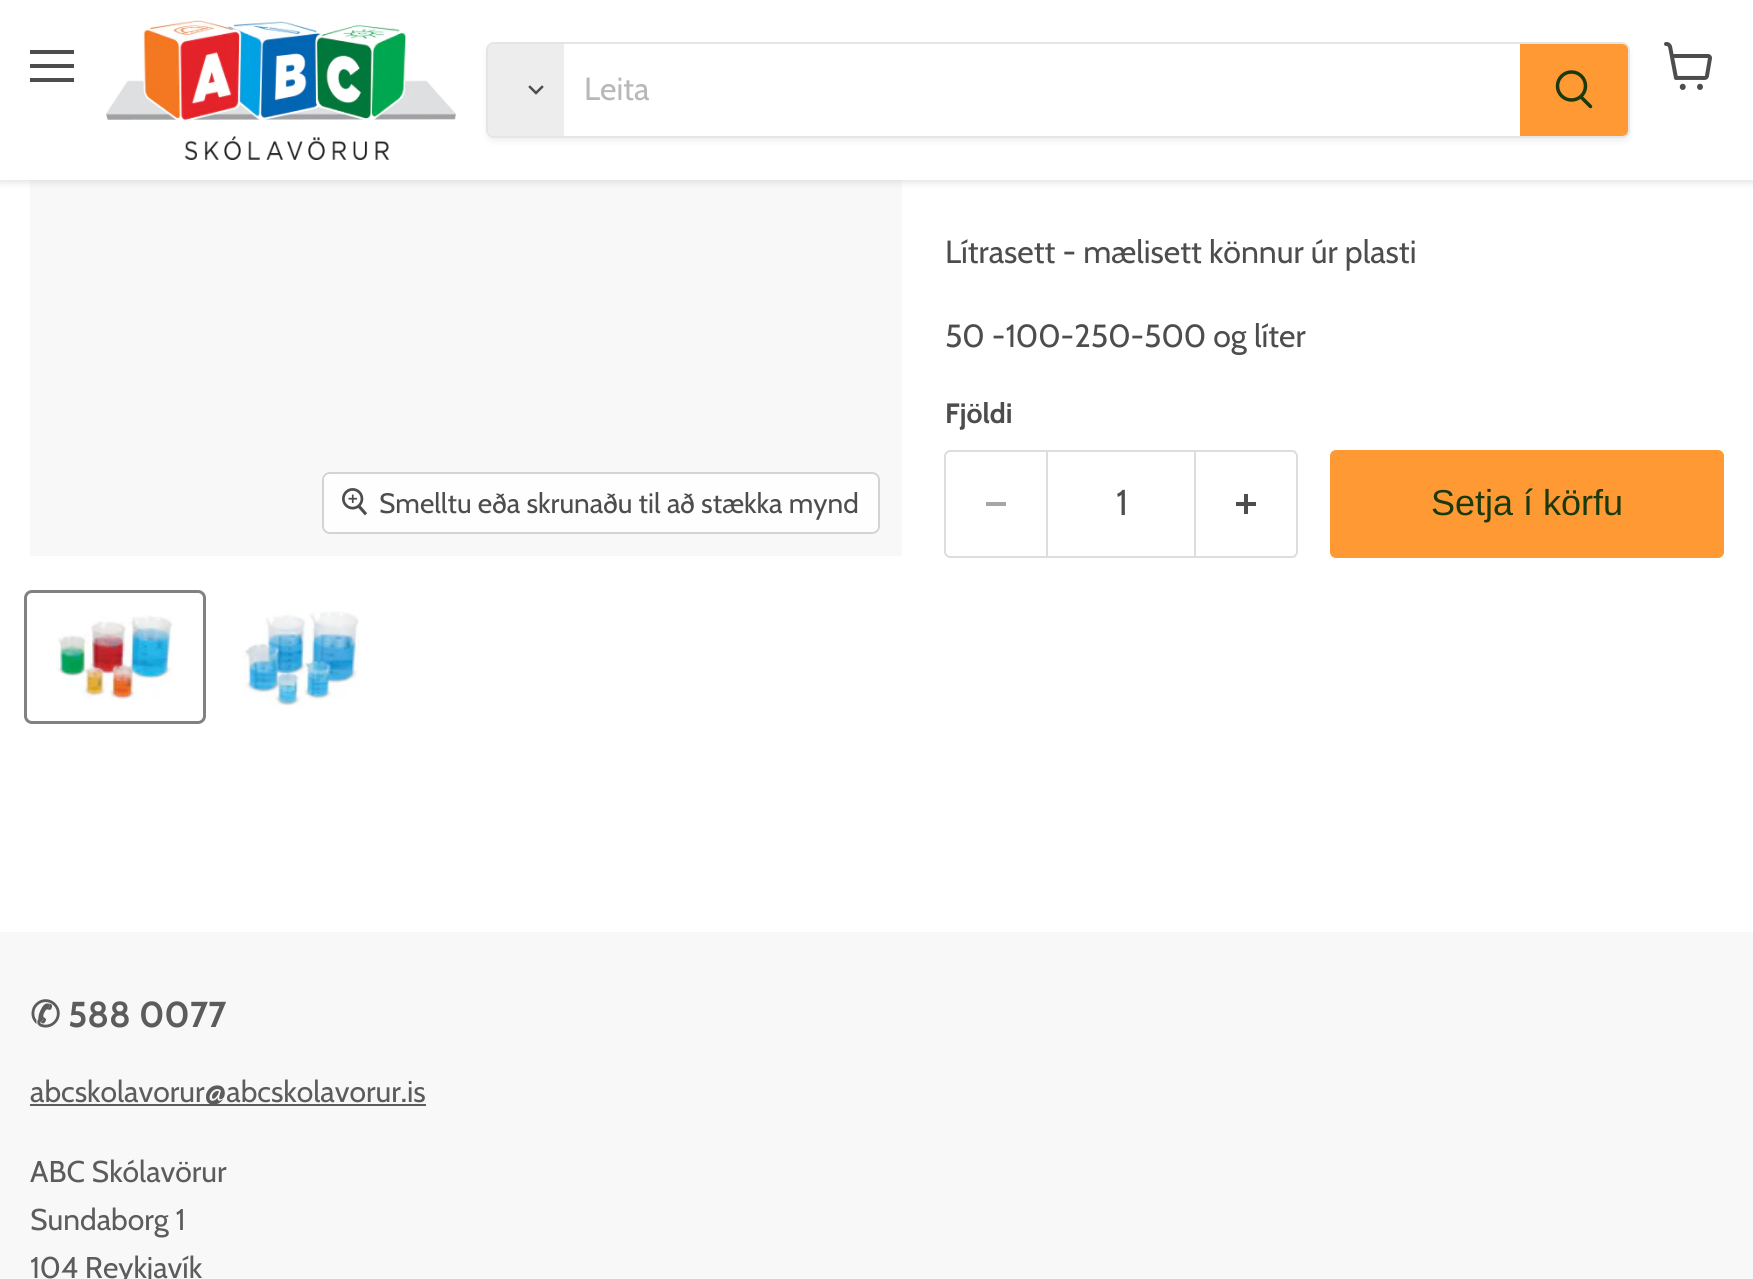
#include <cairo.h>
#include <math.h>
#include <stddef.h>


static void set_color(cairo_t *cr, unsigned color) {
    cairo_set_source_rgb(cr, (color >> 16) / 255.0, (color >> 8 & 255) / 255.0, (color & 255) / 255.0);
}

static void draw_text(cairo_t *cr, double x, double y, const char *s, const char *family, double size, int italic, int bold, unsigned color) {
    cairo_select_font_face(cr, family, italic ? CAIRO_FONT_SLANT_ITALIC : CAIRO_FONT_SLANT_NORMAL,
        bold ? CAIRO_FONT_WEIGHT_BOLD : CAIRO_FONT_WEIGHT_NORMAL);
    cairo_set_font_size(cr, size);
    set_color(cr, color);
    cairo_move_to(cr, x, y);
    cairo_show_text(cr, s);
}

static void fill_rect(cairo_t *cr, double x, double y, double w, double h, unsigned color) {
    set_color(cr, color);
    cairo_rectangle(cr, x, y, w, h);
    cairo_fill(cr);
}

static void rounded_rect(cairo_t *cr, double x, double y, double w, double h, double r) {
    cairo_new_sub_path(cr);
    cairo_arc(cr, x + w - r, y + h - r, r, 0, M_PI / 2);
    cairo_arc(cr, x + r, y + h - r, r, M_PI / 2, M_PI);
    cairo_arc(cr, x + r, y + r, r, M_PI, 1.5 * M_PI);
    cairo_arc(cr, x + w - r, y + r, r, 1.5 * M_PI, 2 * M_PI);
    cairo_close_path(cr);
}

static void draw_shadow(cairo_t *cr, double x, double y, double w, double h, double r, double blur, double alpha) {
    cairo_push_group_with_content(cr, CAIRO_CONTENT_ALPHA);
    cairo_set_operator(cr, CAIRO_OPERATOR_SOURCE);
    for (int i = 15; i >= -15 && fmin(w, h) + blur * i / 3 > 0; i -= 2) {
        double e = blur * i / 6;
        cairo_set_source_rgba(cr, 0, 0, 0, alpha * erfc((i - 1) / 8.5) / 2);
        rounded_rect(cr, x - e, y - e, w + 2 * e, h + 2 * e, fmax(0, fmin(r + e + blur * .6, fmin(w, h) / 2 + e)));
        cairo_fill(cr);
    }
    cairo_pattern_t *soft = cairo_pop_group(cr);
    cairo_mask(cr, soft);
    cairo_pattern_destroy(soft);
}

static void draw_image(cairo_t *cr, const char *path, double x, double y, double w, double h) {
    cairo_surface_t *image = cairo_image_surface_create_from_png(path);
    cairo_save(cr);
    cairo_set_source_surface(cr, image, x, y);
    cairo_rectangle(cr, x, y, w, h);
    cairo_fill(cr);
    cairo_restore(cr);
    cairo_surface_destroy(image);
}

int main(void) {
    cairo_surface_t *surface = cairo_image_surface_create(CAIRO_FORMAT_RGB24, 1753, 1279);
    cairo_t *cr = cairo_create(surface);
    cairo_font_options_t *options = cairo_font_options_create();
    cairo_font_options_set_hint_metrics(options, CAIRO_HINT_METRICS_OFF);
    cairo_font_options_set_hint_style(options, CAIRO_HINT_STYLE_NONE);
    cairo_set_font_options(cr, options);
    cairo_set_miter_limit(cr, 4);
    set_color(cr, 0xFFFFFF);
    cairo_paint(cr);
    fill_rect(cr, 30, 180, 872, 376, 0xF8F8F8);
    set_color(cr, 0x808080);
    draw_shadow(cr, 0, 2, 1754, 180, 0, 4, 0.25);
    fill_rect(cr, 0, 0, 1753, 180, 0xFFFFFF);
    fill_rect(cr, 30, 50, 44, 4, 0x4D4D4D);
    fill_rect(cr, 30, 64, 44, 4, 0x4D4D4D);
    fill_rect(cr, 30, 78, 44, 4, 0x4D4D4D);
    draw_image(cr, "assets/img1.png", 1664, 42, 48, 48);
    draw_image(cr, "assets/img2.png", 106, 20, 350, 140);
    cairo_save(cr);
    cairo_set_fill_rule(cr, CAIRO_FILL_RULE_EVEN_ODD);
    cairo_new_path(cr);
    cairo_move_to(cr, 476, 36);
    cairo_line_to(cr, 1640, 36);
    cairo_line_to(cr, 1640, 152);
    cairo_line_to(cr, 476, 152);
    cairo_close_path(cr);
    cairo_move_to(cr, 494, 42);
    cairo_line_to(cr, 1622, 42);
    cairo_curve_to(cr, 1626.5, 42, 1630, 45.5, 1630, 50);
    cairo_line_to(cr, 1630, 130);
    cairo_curve_to(cr, 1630, 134.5, 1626.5, 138, 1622, 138);
    cairo_line_to(cr, 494, 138);
    cairo_curve_to(cr, 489.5, 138, 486, 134.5, 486, 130);
    cairo_line_to(cr, 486, 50);
    cairo_curve_to(cr, 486, 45.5, 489.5, 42, 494, 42);
    cairo_close_path(cr);
    cairo_clip(cr);
    set_color(cr, 0x808080);
    draw_shadow(cr, 486, 46, 1144, 96, 8, 3, 0.11);
    cairo_restore(cr);
    rounded_rect(cr, 487, 43, 1142, 94, 7);
    cairo_set_source_rgba(cr, 0.502, 0.502, 0.502, 0.2);
    cairo_stroke(cr);
    set_color(cr, 0xEDEDED);
    cairo_new_path(cr);
    cairo_move_to(cr, 494, 44);
    cairo_line_to(cr, 564, 44);
    cairo_line_to(cr, 564, 136);
    cairo_line_to(cr, 494, 136);
    cairo_curve_to(cr, 490.5, 136, 488, 133.5, 488, 130);
    cairo_line_to(cr, 488, 50);
    cairo_curve_to(cr, 488, 46.5, 490.5, 44, 494, 44);
    cairo_close_path(cr);
    cairo_fill(cr);
    cairo_new_path(cr);
    cairo_move_to(cr, 536, 93);
    cairo_line_to(cr, 542, 87);
    cairo_move_to(cr, 536, 93);
    cairo_line_to(cr, 530, 87);
    set_color(cr, 0x4D4D4D);
    cairo_set_line_width(cr, 2.5);
    cairo_set_line_cap(cr, CAIRO_LINE_CAP_SQUARE);
    cairo_stroke(cr);
    draw_text(cr, 584, 100, "Leita", "Cabin", 32, 0, 0, 0xB8B8B8);
    set_color(cr, 0xFF9933);
    cairo_new_path(cr);
    cairo_move_to(cr, 1521, 45);
    cairo_line_to(cr, 1622, 45);
    cairo_curve_to(cr, 1625, 45, 1627, 47, 1627, 50);
    cairo_line_to(cr, 1627, 130);
    cairo_curve_to(cr, 1627, 133, 1625, 135, 1622, 135);
    cairo_line_to(cr, 1521, 135);
    cairo_close_path(cr);
    cairo_fill_preserve(cr);
    cairo_set_line_width(cr, 2);
    cairo_set_line_cap(cr, CAIRO_LINE_CAP_BUTT);
    cairo_stroke(cr);
    cairo_new_path(cr);
    cairo_move_to(cr, 1590.5, 106.5);
    cairo_line_to(cr, 1581, 97);
    set_color(cr, 0x1A390C);
    cairo_set_line_width(cr, 3.5);
    cairo_set_line_cap(cr, CAIRO_LINE_CAP_ROUND);
    cairo_stroke(cr);
    cairo_arc(cr, 1571.5, 86, 14, 0, 2 * M_PI);
    cairo_set_line_cap(cr, CAIRO_LINE_CAP_BUTT);
    cairo_stroke(cr);
    rounded_rect(cr, 323, 473, 556, 60, 7);
    set_color(cr, 0xD3D3D3);
    cairo_set_line_width(cr, 2);
    cairo_stroke(cr);
    cairo_set_source_rgba(cr, 1, 1, 1, 0.9);
    rounded_rect(cr, 324, 474, 554, 58, 6);
    cairo_fill(cr);
    draw_image(cr, "assets/img3.png", 342, 488, 26, 28);
    draw_text(cr, 379, 513, "Smelltu eða skrunaðu til að stækka mynd", "Cabin", 28, 0, 0, 0x4D4D4D);
    rounded_rect(cr, 25.5, 591.5, 179, 131, 6.5);
    set_color(cr, 0x818181);
    cairo_set_line_width(cr, 3);
    cairo_stroke(cr);
    draw_image(cr, "assets/img4.png", 55, 615, 118, 85);
    draw_image(cr, "assets/img5.png", 243, 611, 116, 98);
    draw_text(cr, 945, 263, "Lítrasett - mælisett könnur úr plasti", "Cabin", 32, 0, 0, 0x4D4D4D);
    draw_text(cr, 945, 347, "50 -100-250-500 og líter", "Cabin", 32, 0, 0, 0x4D4D4D);
    draw_text(cr, 945, 423, "Fjöldi", "Cabin", 28, 0, 1, 0x4D4D4D);
    set_color(cr, 0xDDDDDD);
    cairo_set_fill_rule(cr, CAIRO_FILL_RULE_EVEN_ODD);
    cairo_new_path(cr);
    cairo_move_to(cr, 950, 450);
    cairo_line_to(cr, 1046, 450);
    cairo_line_to(cr, 1046, 558);
    cairo_line_to(cr, 950, 558);
    cairo_curve_to(cr, 947, 558, 944, 555, 944, 552);
    cairo_line_to(cr, 944, 456);
    cairo_curve_to(cr, 944, 453, 947, 450, 950, 450);
    cairo_close_path(cr);
    cairo_move_to(cr, 950, 452);
    cairo_line_to(cr, 1046, 452);
    cairo_line_to(cr, 1046, 556);
    cairo_line_to(cr, 950, 556);
    cairo_curve_to(cr, 948, 556, 946, 554, 946, 552);
    cairo_line_to(cr, 946, 456);
    cairo_curve_to(cr, 946, 454, 948, 452, 950, 452);
    cairo_close_path(cr);
    cairo_fill(cr);
    fill_rect(cr, 986, 502, 20, 4, 0xA6A6A6);
    cairo_rectangle(cr, 1047, 451, 148, 106);
    set_color(cr, 0xDDDDDD);
    cairo_set_line_width(cr, 2);
    cairo_stroke(cr);
    draw_text(cr, 1116, 515, "1", "Cabin", 36, 0, 0, 0x4D4D4D);
    set_color(cr, 0xDDDDDD);
    cairo_new_path(cr);
    cairo_move_to(cr, 1196, 450);
    cairo_line_to(cr, 1292, 450);
    cairo_curve_to(cr, 1295, 450, 1298, 453, 1298, 456);
    cairo_line_to(cr, 1298, 552);
    cairo_curve_to(cr, 1298, 555, 1295, 558, 1292, 558);
    cairo_line_to(cr, 1196, 558);
    cairo_close_path(cr);
    cairo_move_to(cr, 1196, 452);
    cairo_line_to(cr, 1292, 452);
    cairo_curve_to(cr, 1294, 452, 1296, 454, 1296, 456);
    cairo_line_to(cr, 1296, 552);
    cairo_curve_to(cr, 1296, 554, 1294, 556, 1292, 556);
    cairo_line_to(cr, 1196, 556);
    cairo_close_path(cr);
    cairo_fill(cr);
    draw_image(cr, "assets/img6.png", 1236, 494, 20, 20);
    set_color(cr, 0xFF9933);
    rounded_rect(cr, 1330, 450, 394, 108, 6);
    cairo_fill(cr);
    draw_text(cr, 1431, 515, "Setja í körfu", "Liberation Sans", 36, 0, 0, 0x1A390C);
    fill_rect(cr, 0, 932, 1753, 347, 0xF8F8F8);
    draw_text(cr, 30, 1027, "✆", "DejaVu Sans", 36, 0, 1, 0x5C5C5C);
    draw_text(cr, 68, 1027, "588 0077", "Cabin", 36, 0, 1, 0x5C5C5C);
    fill_rect(cr, 30, 1104, 396, 2, 0x5C5C5C);
    draw_text(cr, 30, 1102, "abcskolavorur@abcskolavorur.is", "Cabin", 30, 0, 0, 0x5C5C5C);
    draw_text(cr, 30, 1182, "ABC Skólavörur", "Cabin", 30, 0, 0, 0x5C5C5C);
    draw_text(cr, 30, 1230, "Sundaborg 1", "Cabin", 30, 0, 0, 0x5C5C5C);
    draw_text(cr, 30, 1278, "104 Reykjavík", "Cabin", 30, 0, 0, 0x5C5C5C);
    cairo_surface_write_to_png(surface, "output.png");
    cairo_font_options_destroy(options);
    cairo_destroy(cr);
    cairo_surface_destroy(surface);
    return 0;
}
